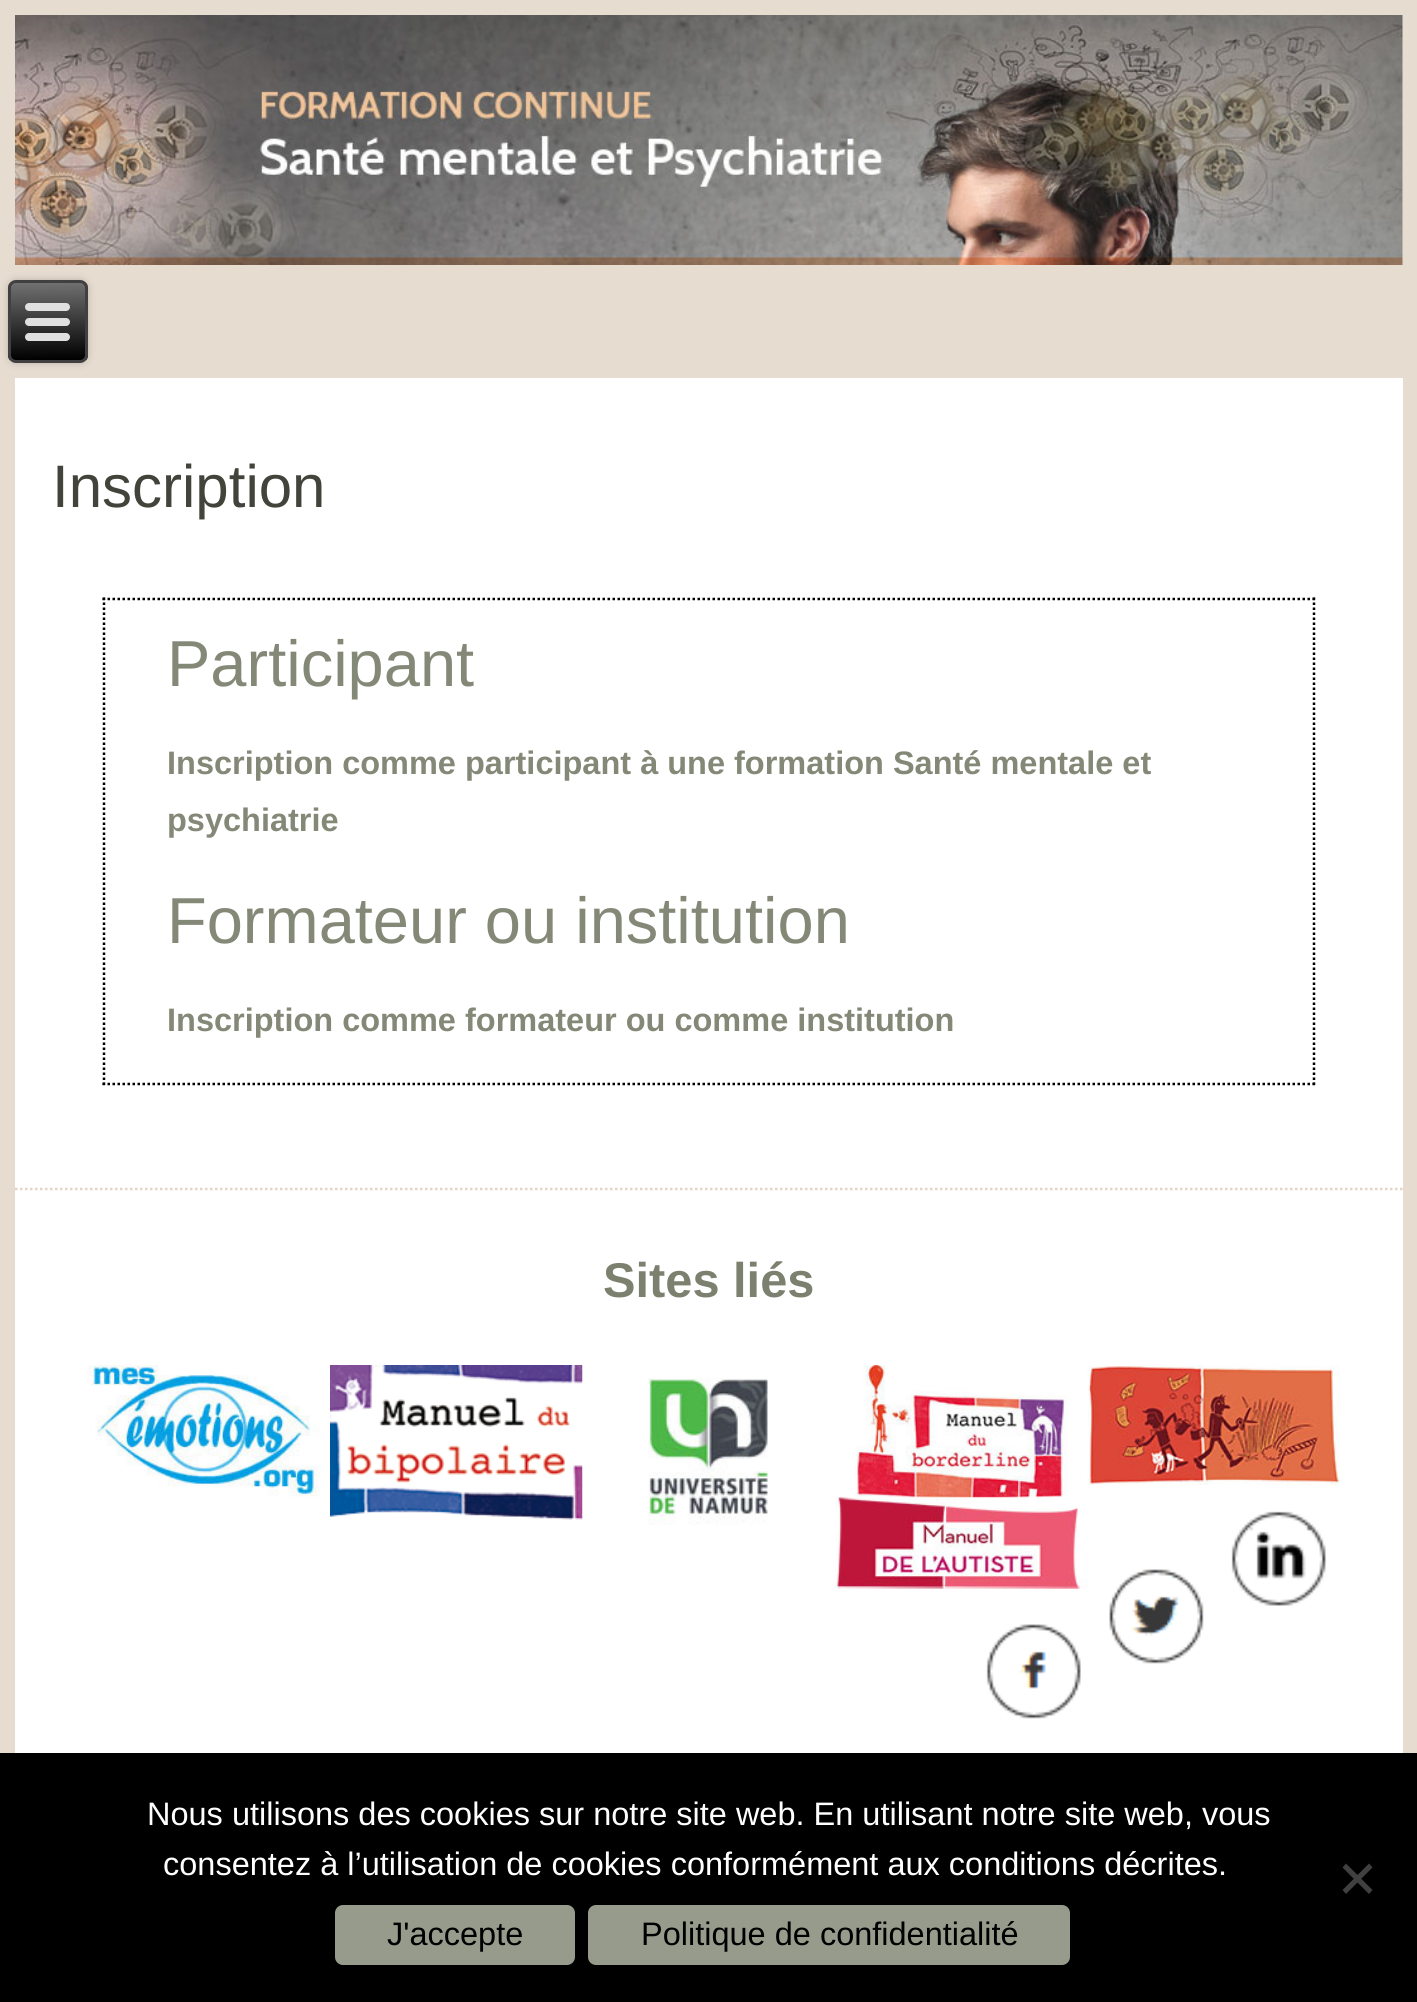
#include <cairo.h>
#include <math.h>
#include <stddef.h>


static void set_color(cairo_t *cr, unsigned color) {
    cairo_set_source_rgb(cr, (color >> 16) / 255.0, (color >> 8 & 255) / 255.0, (color & 255) / 255.0);
}

static void draw_text(cairo_t *cr, double x, double y, const char *s, const char *family, double size, int italic, int bold, unsigned color) {
    cairo_select_font_face(cr, family, italic ? CAIRO_FONT_SLANT_ITALIC : CAIRO_FONT_SLANT_NORMAL,
        bold ? CAIRO_FONT_WEIGHT_BOLD : CAIRO_FONT_WEIGHT_NORMAL);
    cairo_set_font_size(cr, size);
    set_color(cr, color);
    cairo_move_to(cr, x, y);
    cairo_show_text(cr, s);
}

static void fill_rect(cairo_t *cr, double x, double y, double w, double h, unsigned color) {
    set_color(cr, color);
    cairo_rectangle(cr, x, y, w, h);
    cairo_fill(cr);
}

static void rounded_rect(cairo_t *cr, double x, double y, double w, double h, double r) {
    cairo_new_sub_path(cr);
    cairo_arc(cr, x + w - r, y + h - r, r, 0, M_PI / 2);
    cairo_arc(cr, x + r, y + h - r, r, M_PI / 2, M_PI);
    cairo_arc(cr, x + r, y + r, r, M_PI, 1.5 * M_PI);
    cairo_arc(cr, x + w - r, y + r, r, 1.5 * M_PI, 2 * M_PI);
    cairo_close_path(cr);
}

static void draw_shadow(cairo_t *cr, double x, double y, double w, double h, double r, double blur, double alpha) {
    cairo_push_group_with_content(cr, CAIRO_CONTENT_ALPHA);
    cairo_set_operator(cr, CAIRO_OPERATOR_SOURCE);
    for (int i = 15; i >= -15 && fmin(w, h) + blur * i / 3 > 0; i -= 2) {
        double e = blur * i / 6;
        cairo_set_source_rgba(cr, 0, 0, 0, alpha * erfc((i - 1) / 8.5) / 2);
        rounded_rect(cr, x - e, y - e, w + 2 * e, h + 2 * e, fmax(0, fmin(r + e + blur * .6, fmin(w, h) / 2 + e)));
        cairo_fill(cr);
    }
    cairo_pattern_t *soft = cairo_pop_group(cr);
    cairo_mask(cr, soft);
    cairo_pattern_destroy(soft);
}

static void draw_image(cairo_t *cr, const char *path, double x, double y, double w, double h) {
    cairo_surface_t *image = cairo_image_surface_create_from_png(path);
    cairo_save(cr);
    cairo_set_source_surface(cr, image, x, y);
    cairo_rectangle(cr, x, y, w, h);
    cairo_fill(cr);
    cairo_restore(cr);
    cairo_surface_destroy(image);
}

int main(void) {
    cairo_surface_t *surface = cairo_image_surface_create(CAIRO_FORMAT_RGB24, 1417, 2002);
    cairo_t *cr = cairo_create(surface);
    cairo_font_options_t *options = cairo_font_options_create();
    cairo_font_options_set_hint_metrics(options, CAIRO_HINT_METRICS_OFF);
    cairo_font_options_set_hint_style(options, CAIRO_HINT_STYLE_NONE);
    cairo_set_font_options(cr, options);
    cairo_set_miter_limit(cr, 4);
    cairo_pattern_t *gradient;
    set_color(cr, 0xE7DCD0);
    cairo_paint(cr);
    draw_image(cr, "assets/img1.png", 15, 15, 1388, 250);
    set_color(cr, 0x000000);
    draw_shadow(cr, 8, 280, 80, 83, 8, 4, 0.2);
    cairo_save(cr);
    rounded_rect(cr, 8, 280, 80, 83, 8);
    cairo_clip(cr);
    gradient = cairo_pattern_create_linear(47, 283, 48, 360);
    cairo_pattern_add_color_stop_rgba(gradient, 0, 0.439, 0.439, 0.439, 1);
    cairo_pattern_add_color_stop_rgba(gradient, 1, 0, 0, 0, 1);
    cairo_set_source(cr, gradient);
    cairo_pattern_destroy(gradient);
    cairo_rectangle(cr, 8, 283, 80, 77);
    cairo_fill(cr);
    cairo_restore(cr);
    rounded_rect(cr, 9.5, 281.5, 77, 80, 6.5);
    set_color(cr, 0x404040);
    cairo_set_line_width(cr, 3);
    cairo_stroke(cr);
    set_color(cr, 0xE0E0E0);
    rounded_rect(cr, 25, 303, 45, 8, 4);
    cairo_fill(cr);
    rounded_rect(cr, 25, 318, 45, 8, 4);
    cairo_fill(cr);
    rounded_rect(cr, 25, 333, 45, 8, 4);
    cairo_fill(cr);
    fill_rect(cr, 15, 378, 1388, 1375, 0xFFFFFF);
    draw_text(cr, 52, 507, "Inscription", "Liberation Sans", 60, 0, 0, 0x42443B);
    cairo_new_path(cr);
    cairo_move_to(cr, 102.5, 599);
    cairo_line_to(cr, 1315, 599);
    set_color(cr, 0x000000);
    cairo_set_line_width(cr, 2.5);
    cairo_set_dash(cr, (double[]){2.5, 2.5}, 2, 0);
    cairo_stroke(cr);
    cairo_new_path(cr);
    cairo_move_to(cr, 1314, 597.5);
    cairo_line_to(cr, 1314, 1085);
    cairo_stroke(cr);
    cairo_new_path(cr);
    cairo_move_to(cr, 102.5, 1084);
    cairo_line_to(cr, 1315, 1084);
    cairo_stroke(cr);
    cairo_new_path(cr);
    cairo_move_to(cr, 104, 597.5);
    cairo_line_to(cr, 104, 1085);
    cairo_stroke(cr);
    draw_text(cr, 167, 686, "Participant", "Liberation Sans", 65, 0, 0, 0x848877);
    draw_text(cr, 167, 774, "Inscription comme participant à une formation Santé mentale et", "Liberation Sans", 32.5, 0, 1, 0x848877);
    draw_text(cr, 167, 831, "psychiatrie", "Liberation Sans", 32.5, 0, 1, 0x848877);
    draw_text(cr, 167, 943, "Formateur ou institution", "Liberation Sans", 65, 0, 0, 0x848877);
    draw_text(cr, 167, 1031, "Inscription comme formateur ou comme institution", "Liberation Sans", 32.5, 0, 1, 0x848877);
    cairo_new_path(cr);
    cairo_move_to(cr, 15, 1189);
    cairo_line_to(cr, 1402.5, 1189);
    set_color(cr, 0xE2D5C5);
    cairo_stroke(cr);
    draw_text(cr, 603, 1297, "Sites liés", "Liberation Sans", 48.75, 0, 1, 0x7C806F);
    draw_image(cr, "assets/img2.png", 87, 1365, 233, 132);
    draw_image(cr, "assets/img3.png", 330, 1365, 253, 155);
    draw_image(cr, "assets/img4.png", 582, 1365, 186, 160);
    draw_image(cr, "assets/img5.png", 855, 1365, 213, 133);
    draw_image(cr, "assets/img6.png", 1087, 1365, 253, 120);
    draw_image(cr, "assets/img7.png", 835, 1497, 253, 92);
    draw_image(cr, "assets/img8.png", 1231, 1511, 95, 95);
    draw_image(cr, "assets/img9.png", 986, 1624, 95, 95);
    draw_image(cr, "assets/img10.png", 1109, 1569, 95, 95);
    fill_rect(cr, 0, 1753, 1417, 249, 0x000000);
    draw_text(cr, 147, 1825, "Nous utilisons des cookies sur notre site web. En utilisant notre site web, vous", "Liberation Sans", 32.5, 0, 0, 0xFFFFFF);
    draw_text(cr, 163, 1875, "consentez à l’utilisation de cookies conformément aux conditions décrites.", "Liberation Sans", 32.5, 0, 0, 0xFFFFFF);
    set_color(cr, 0x404040);
    cairo_new_path(cr);
    cairo_move_to(cr, 1369, 1863.5);
    cairo_line_to(cr, 1372.5, 1867.5);
    cairo_line_to(cr, 1346, 1894);
    cairo_line_to(cr, 1342.5, 1890);
    cairo_close_path(cr);
    cairo_fill(cr);
    cairo_new_path(cr);
    cairo_move_to(cr, 1342.5, 1867.5);
    cairo_line_to(cr, 1346, 1863.5);
    cairo_line_to(cr, 1372.5, 1890);
    cairo_line_to(cr, 1369, 1894);
    cairo_close_path(cr);
    cairo_fill(cr);
    set_color(cr, 0x979B8C);
    rounded_rect(cr, 335, 1905, 240, 60, 8);
    cairo_fill(cr);
    draw_text(cr, 387, 1945, "J'accepte", "Liberation Sans", 32.5, 0, 0, 0x000000);
    set_color(cr, 0x979B8C);
    rounded_rect(cr, 588, 1905, 482, 60, 8);
    cairo_fill(cr);
    draw_text(cr, 641, 1945, "Politique de confidentialité", "Liberation Sans", 32.5, 0, 0, 0x000000);
    cairo_surface_write_to_png(surface, "output.png");
    cairo_font_options_destroy(options);
    cairo_destroy(cr);
    cairo_surface_destroy(surface);
    return 0;
}
